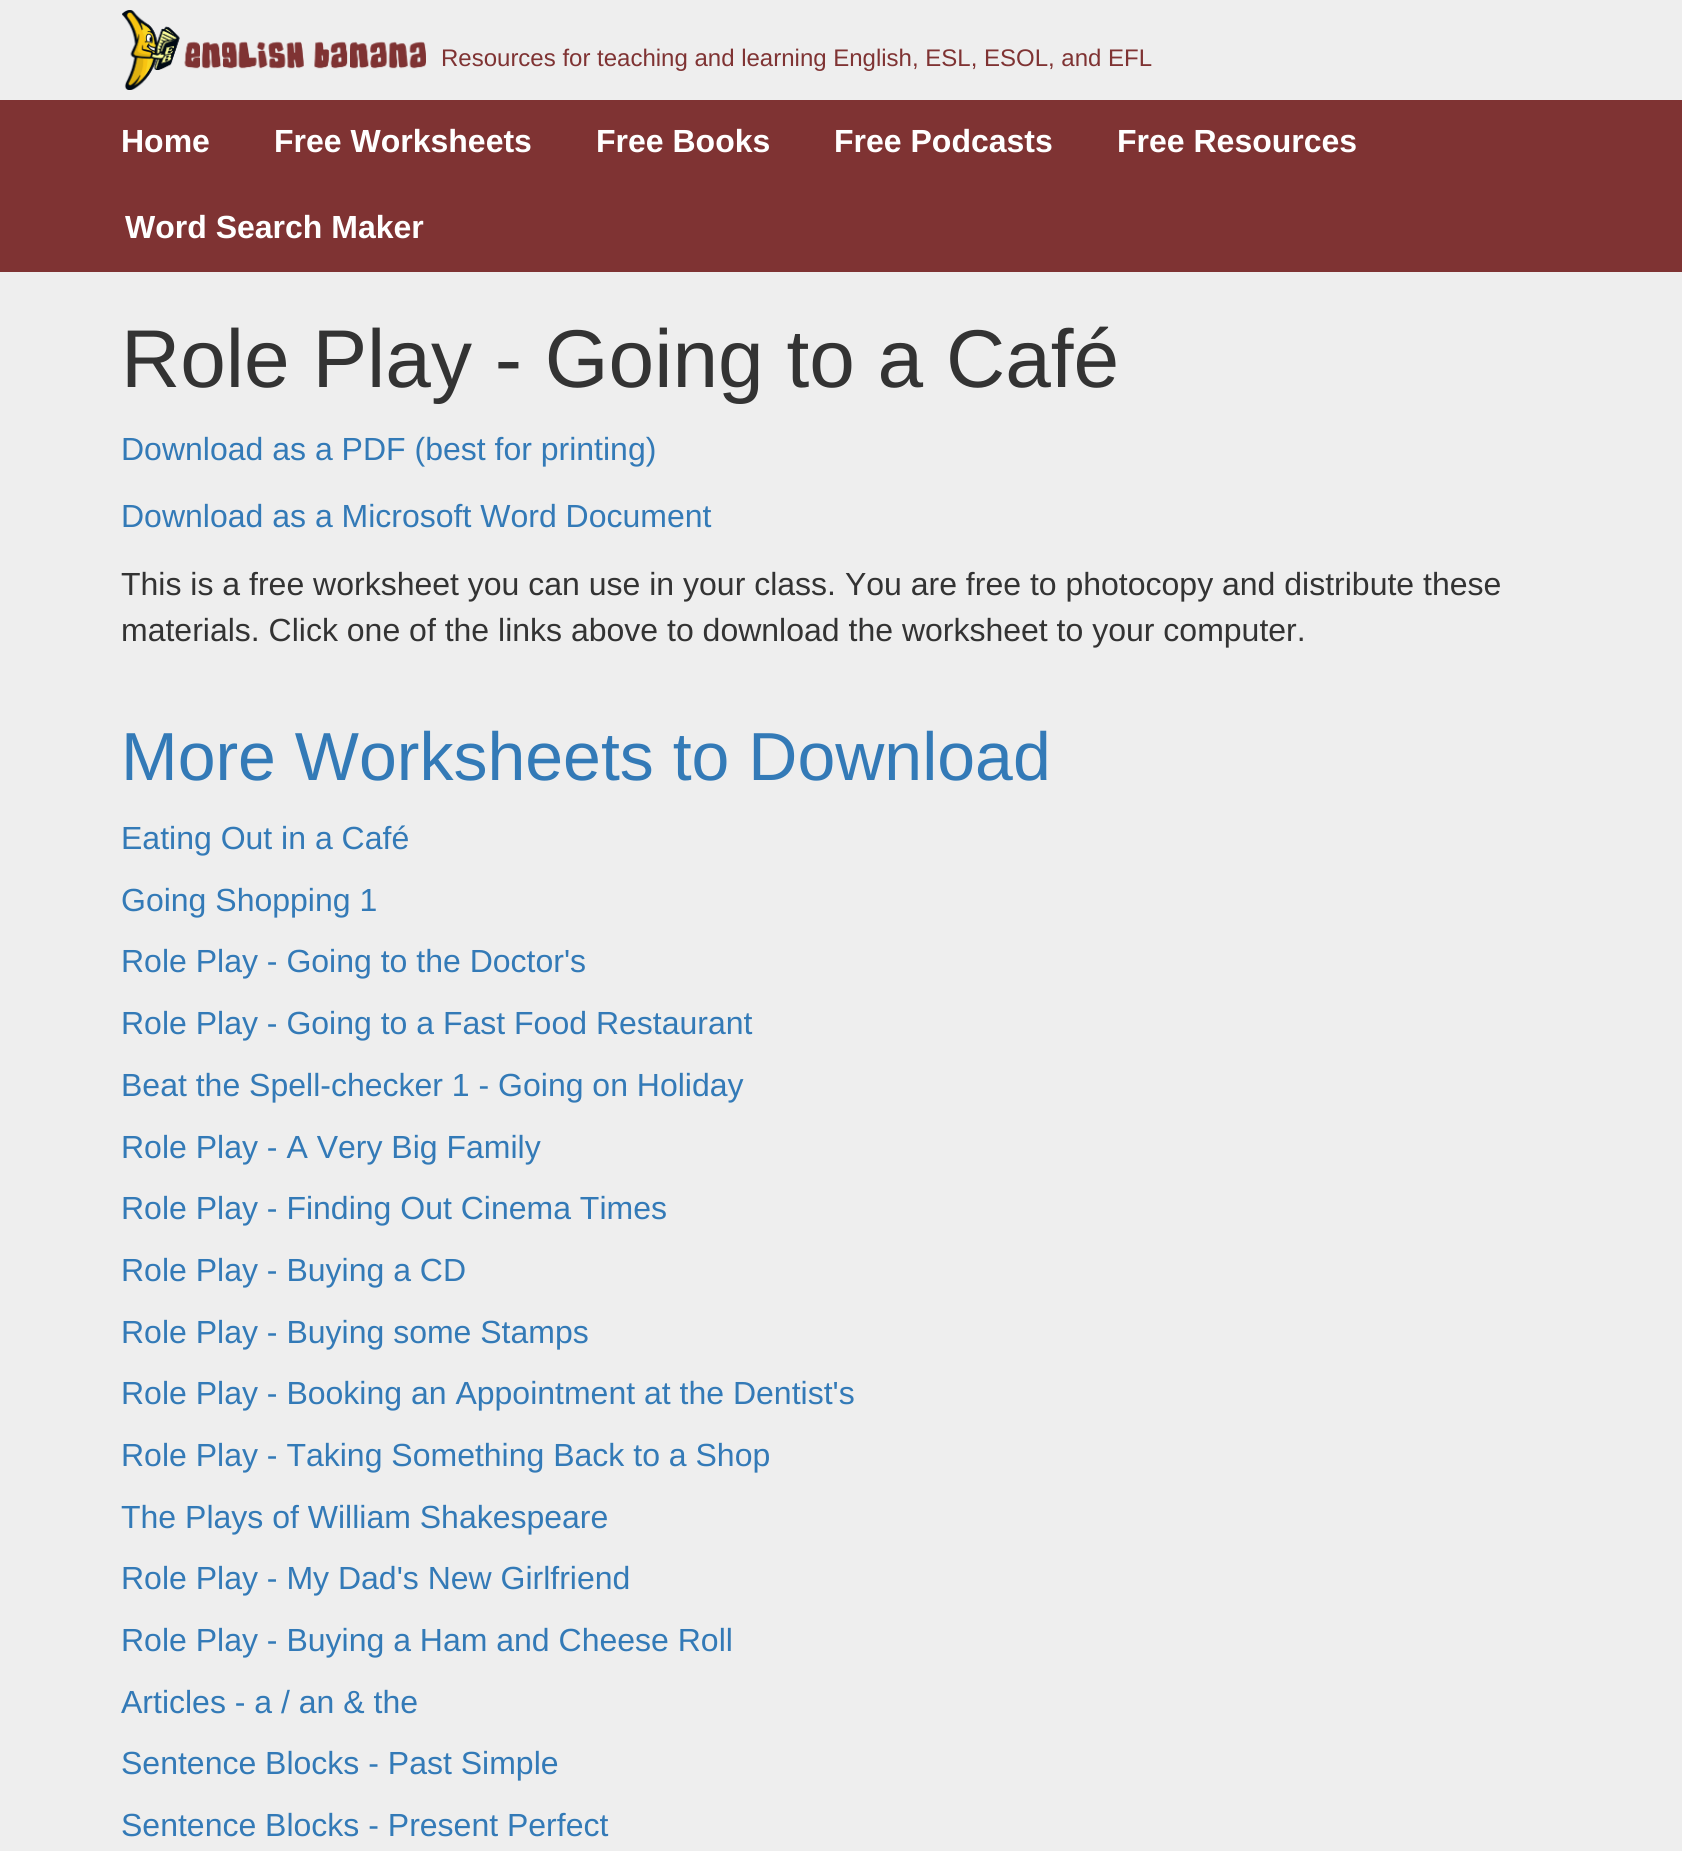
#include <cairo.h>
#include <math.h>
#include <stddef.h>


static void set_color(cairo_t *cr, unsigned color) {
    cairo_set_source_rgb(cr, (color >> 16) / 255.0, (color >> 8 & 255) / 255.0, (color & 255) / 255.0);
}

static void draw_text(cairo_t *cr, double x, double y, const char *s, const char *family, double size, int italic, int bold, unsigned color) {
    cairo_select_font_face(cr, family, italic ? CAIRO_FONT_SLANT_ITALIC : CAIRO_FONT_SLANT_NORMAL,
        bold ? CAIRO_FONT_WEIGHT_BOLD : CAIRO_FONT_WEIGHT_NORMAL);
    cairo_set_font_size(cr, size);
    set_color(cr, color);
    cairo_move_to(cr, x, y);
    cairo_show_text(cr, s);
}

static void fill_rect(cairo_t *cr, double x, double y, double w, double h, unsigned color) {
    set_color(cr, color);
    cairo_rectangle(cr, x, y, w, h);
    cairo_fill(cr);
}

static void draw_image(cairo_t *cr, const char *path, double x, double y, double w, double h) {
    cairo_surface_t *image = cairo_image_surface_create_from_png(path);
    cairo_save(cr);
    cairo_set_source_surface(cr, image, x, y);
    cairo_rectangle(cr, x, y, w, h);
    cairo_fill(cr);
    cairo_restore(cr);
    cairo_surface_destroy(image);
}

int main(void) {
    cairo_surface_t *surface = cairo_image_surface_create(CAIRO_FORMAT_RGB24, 1682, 1851);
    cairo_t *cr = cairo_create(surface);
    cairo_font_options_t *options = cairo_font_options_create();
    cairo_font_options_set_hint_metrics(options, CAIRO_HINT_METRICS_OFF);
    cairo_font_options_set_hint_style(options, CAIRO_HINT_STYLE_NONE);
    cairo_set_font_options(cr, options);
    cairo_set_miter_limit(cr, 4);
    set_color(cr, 0xEEEEEE);
    cairo_paint(cr);
    draw_image(cr, "assets/img1.png", 122, 10, 304, 80);
    draw_text(cr, 441, 66, "Resources for teaching and learning English, ESL, ESOL, and EFL", "Liberation Sans", 24, 0, 0, 0x7F3333);
    fill_rect(cr, 0, 100, 1682, 172, 0x7F3333);
    draw_text(cr, 121, 152, "Home", "Liberation Sans", 32, 0, 1, 0xFFFFFF);
    draw_text(cr, 274, 152, "Free Worksheets", "Liberation Sans", 32, 0, 1, 0xFFFFFF);
    draw_text(cr, 596, 152, "Free Books", "Liberation Sans", 32, 0, 1, 0xFFFFFF);
    draw_text(cr, 834, 152, "Free Podcasts", "Liberation Sans", 32, 0, 1, 0xFFFFFF);
    draw_text(cr, 1117, 152, "Free Resources", "Liberation Sans", 32, 0, 1, 0xFFFFFF);
    draw_text(cr, 125, 238, "Word Search Maker", "Liberation Sans", 32, 0, 1, 0xFFFFFF);
    draw_text(cr, 121, 387, "Role Play - Going to a Café", "Liberation Sans", 82, 0, 0, 0x333333);
    draw_text(cr, 121, 460, "Download as a PDF (best for printing)", "Liberation Sans", 32, 0, 0, 0x337AB7);
    draw_text(cr, 121, 527, "Download as a Microsoft Word Document", "Liberation Sans", 32, 0, 0, 0x337AB7);
    draw_text(cr, 121, 595, "This is a free worksheet you can use in your class. You are free to photocopy and distribute these", "Liberation Sans", 32, 0, 0, 0x333333);
    draw_text(cr, 121, 641, "materials. Click one of the links above to download the worksheet to your computer.", "Liberation Sans", 32, 0, 0, 0x333333);
    draw_text(cr, 121, 780, "More Worksheets to Download", "Liberation Sans", 68, 0, 0, 0x337AB7);
    draw_text(cr, 121, 849, "Eating Out in a Café", "Liberation Sans", 32, 0, 0, 0x337AB7);
    draw_text(cr, 121, 911, "Going Shopping 1", "Liberation Sans", 32, 0, 0, 0x337AB7);
    draw_text(cr, 121, 972, "Role Play - Going to the Doctor's", "Liberation Sans", 32, 0, 0, 0x337AB7);
    draw_text(cr, 121, 1034, "Role Play - Going to a Fast Food Restaurant", "Liberation Sans", 32, 0, 0, 0x337AB7);
    draw_text(cr, 121, 1096, "Beat the Spell-checker 1 - Going on Holiday", "Liberation Sans", 32, 0, 0, 0x337AB7);
    draw_text(cr, 121, 1158, "Role Play - A Very Big Family", "Liberation Sans", 32, 0, 0, 0x337AB7);
    draw_text(cr, 121, 1219, "Role Play - Finding Out Cinema Times", "Liberation Sans", 32, 0, 0, 0x337AB7);
    draw_text(cr, 121, 1281, "Role Play - Buying a CD", "Liberation Sans", 32, 0, 0, 0x337AB7);
    draw_text(cr, 121, 1343, "Role Play - Buying some Stamps", "Liberation Sans", 32, 0, 0, 0x337AB7);
    draw_text(cr, 121, 1404, "Role Play - Booking an Appointment at the Dentist's", "Liberation Sans", 32, 0, 0, 0x337AB7);
    draw_text(cr, 121, 1466, "Role Play - Taking Something Back to a Shop", "Liberation Sans", 32, 0, 0, 0x337AB7);
    draw_text(cr, 121, 1528, "The Plays of William Shakespeare", "Liberation Sans", 32, 0, 0, 0x337AB7);
    draw_text(cr, 121, 1589, "Role Play - My Dad's New Girlfriend", "Liberation Sans", 32, 0, 0, 0x337AB7);
    draw_text(cr, 121, 1651, "Role Play - Buying a Ham and Cheese Roll", "Liberation Sans", 32, 0, 0, 0x337AB7);
    draw_text(cr, 121, 1713, "Articles - a / an & the", "Liberation Sans", 32, 0, 0, 0x337AB7);
    draw_text(cr, 121, 1774, "Sentence Blocks - Past Simple", "Liberation Sans", 32, 0, 0, 0x337AB7);
    draw_text(cr, 121, 1836, "Sentence Blocks - Present Perfect", "Liberation Sans", 32, 0, 0, 0x337AB7);
    cairo_surface_write_to_png(surface, "output.png");
    cairo_font_options_destroy(options);
    cairo_destroy(cr);
    cairo_surface_destroy(surface);
    return 0;
}
